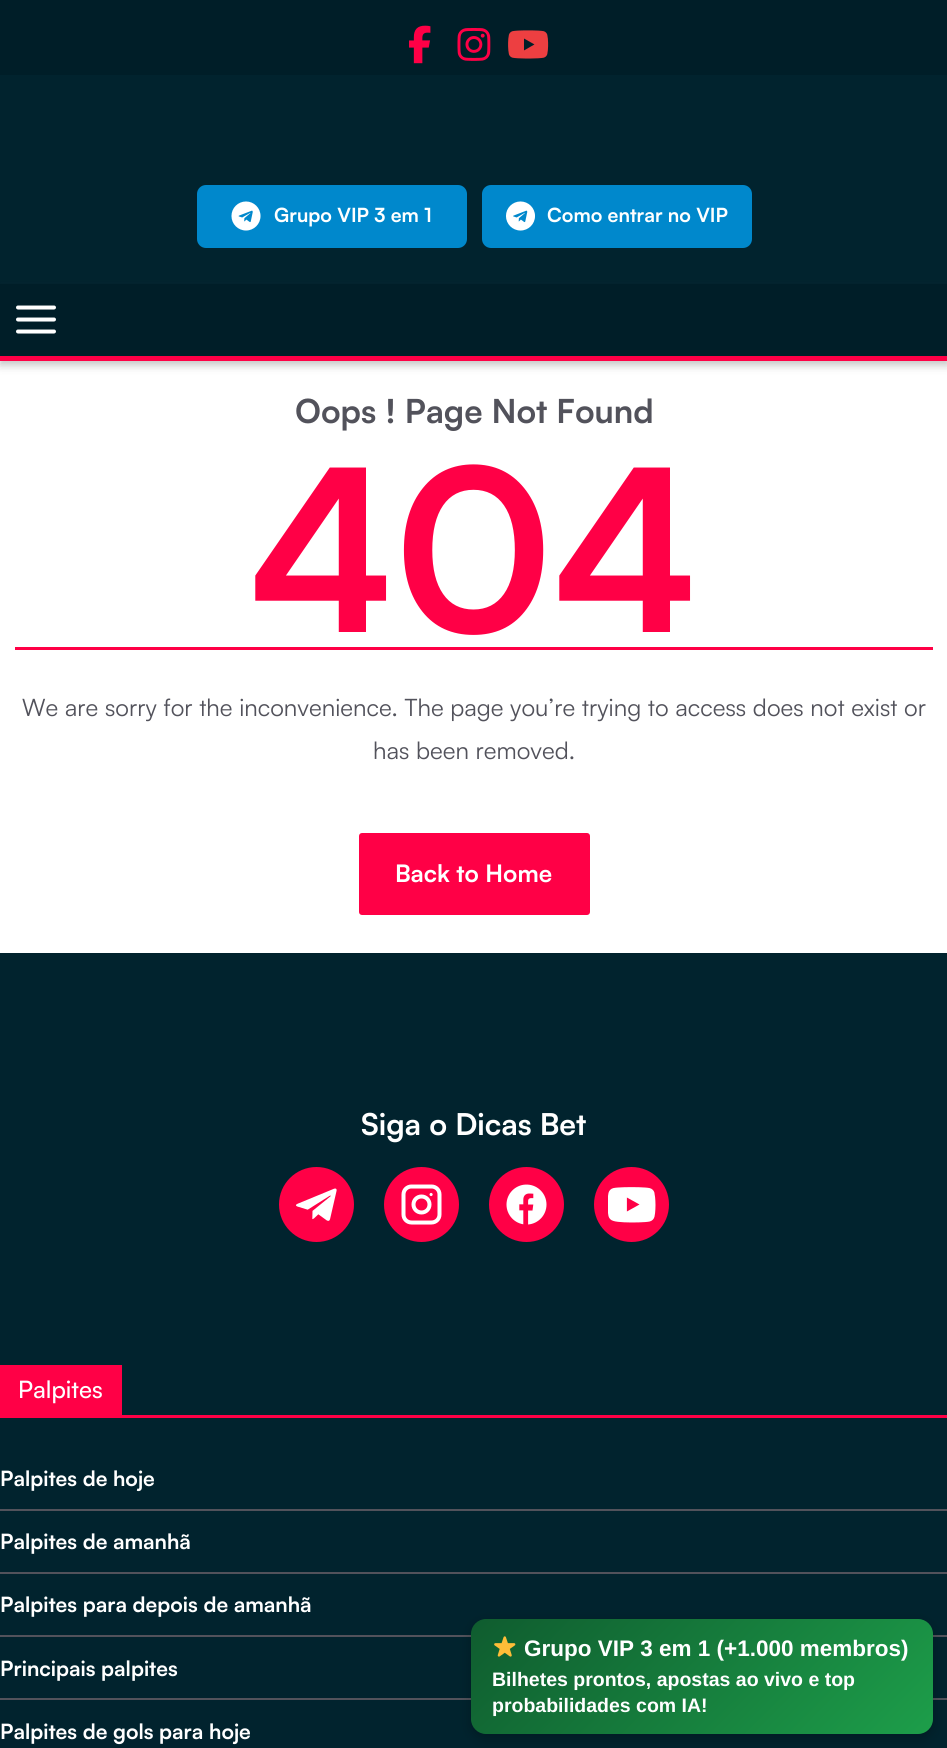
#include <cairo.h>
#include <math.h>
#include <stddef.h>


static void set_color(cairo_t *cr, unsigned color) {
    cairo_set_source_rgb(cr, (color >> 16) / 255.0, (color >> 8 & 255) / 255.0, (color & 255) / 255.0);
}

static void draw_text(cairo_t *cr, double x, double y, const char *s, const char *family, double size, int italic, int bold, unsigned color) {
    cairo_select_font_face(cr, family, italic ? CAIRO_FONT_SLANT_ITALIC : CAIRO_FONT_SLANT_NORMAL,
        bold ? CAIRO_FONT_WEIGHT_BOLD : CAIRO_FONT_WEIGHT_NORMAL);
    cairo_set_font_size(cr, size);
    set_color(cr, color);
    cairo_move_to(cr, x, y);
    cairo_show_text(cr, s);
}

static void fill_rect(cairo_t *cr, double x, double y, double w, double h, unsigned color) {
    set_color(cr, color);
    cairo_rectangle(cr, x, y, w, h);
    cairo_fill(cr);
}

static void rounded_rect(cairo_t *cr, double x, double y, double w, double h, double r) {
    cairo_new_sub_path(cr);
    cairo_arc(cr, x + w - r, y + h - r, r, 0, M_PI / 2);
    cairo_arc(cr, x + r, y + h - r, r, M_PI / 2, M_PI);
    cairo_arc(cr, x + r, y + r, r, M_PI, 1.5 * M_PI);
    cairo_arc(cr, x + w - r, y + r, r, 1.5 * M_PI, 2 * M_PI);
    cairo_close_path(cr);
}

static void draw_shadow(cairo_t *cr, double x, double y, double w, double h, double r, double blur, double alpha) {
    cairo_push_group_with_content(cr, CAIRO_CONTENT_ALPHA);
    cairo_set_operator(cr, CAIRO_OPERATOR_SOURCE);
    for (int i = 15; i >= -15 && fmin(w, h) + blur * i / 3 > 0; i -= 2) {
        double e = blur * i / 6;
        cairo_set_source_rgba(cr, 0, 0, 0, alpha * erfc((i - 1) / 8.5) / 2);
        rounded_rect(cr, x - e, y - e, w + 2 * e, h + 2 * e, fmax(0, fmin(r + e + blur * .6, fmin(w, h) / 2 + e)));
        cairo_fill(cr);
    }
    cairo_pattern_t *soft = cairo_pop_group(cr);
    cairo_mask(cr, soft);
    cairo_pattern_destroy(soft);
}

static void draw_image(cairo_t *cr, const char *path, double x, double y, double w, double h) {
    cairo_surface_t *image = cairo_image_surface_create_from_png(path);
    cairo_save(cr);
    cairo_set_source_surface(cr, image, x, y);
    cairo_rectangle(cr, x, y, w, h);
    cairo_fill(cr);
    cairo_restore(cr);
    cairo_surface_destroy(image);
}

int main(void) {
    cairo_surface_t *surface = cairo_image_surface_create(CAIRO_FORMAT_RGB24, 947, 1748);
    cairo_t *cr = cairo_create(surface);
    cairo_font_options_t *options = cairo_font_options_create();
    cairo_font_options_set_hint_metrics(options, CAIRO_HINT_METRICS_OFF);
    cairo_font_options_set_hint_style(options, CAIRO_HINT_STYLE_NONE);
    cairo_set_font_options(cr, options);
    cairo_set_miter_limit(cr, 4);
    cairo_pattern_t *gradient;
    set_color(cr, 0x001E28);
    cairo_paint(cr);
    draw_image(cr, "assets/img1.png", 409, 25, 22, 39);
    draw_image(cr, "assets/img2.png", 457, 28, 34, 33);
    draw_image(cr, "assets/img3.png", 508, 30, 41, 29);
    fill_rect(cr, 0, 75, 947, 209, 0x01232E);
    set_color(cr, 0x0088CC);
    rounded_rect(cr, 197, 185, 270, 63, 9);
    cairo_fill(cr);
    draw_image(cr, "assets/img4.png", 231, 201, 30, 30);
    draw_text(cr, 274, 222, "Grupo VIP 3 em 1", "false", 19.5, 0, 1, 0xFFFFFF);
    set_color(cr, 0x0088CC);
    rounded_rect(cr, 482, 185, 270, 63, 9);
    cairo_fill(cr);
    draw_image(cr, "assets/img5.png", 506, 201, 29, 30);
    draw_text(cr, 547, 222, "Como entrar no VIP", "false", 19.5, 0, 1, 0xFFFFFF);
    fill_rect(cr, 0, 361, 947, 592, 0xFFFFFF);
    set_color(cr, 0x323232);
    draw_shadow(cr, 0, 288, 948, 77, 0, 4.5, 0.3);
    fill_rect(cr, 0, 284, 947, 72, 0x001E28);
    fill_rect(cr, 0, 356, 947, 5, 0xFF0046);
    draw_image(cr, "assets/img6.png", 16, 305, 40, 29);
    draw_text(cr, 295, 423, "Oops ! Page Not Found", "false", 33, 0, 1, 0x52525B);
    fill_rect(cr, 15, 647, 918, 3, 0xFF0046);
    draw_text(cr, 249, 632, "404", "false", 225, 0, 1, 0xFF0046);
    draw_text(cr, 22, 716, "We are sorry for the inconvenience. The page you’re trying to access does not exist or", "false", 24, 0, 0, 0x52525B);
    draw_text(cr, 373, 759, "has been removed.", "false", 24, 0, 0, 0x52525B);
    set_color(cr, 0xFF0046);
    rounded_rect(cr, 360, 834, 229, 80, 2);
    cairo_fill_preserve(cr);
    cairo_stroke(cr);
    draw_text(cr, 395, 882, "Back to Home", "false", 24, 0, 1, 0xFFFFFF);
    fill_rect(cr, 0, 953, 947, 795, 0x01232E);
    draw_text(cr, 361, 1135, "Siga o Dicas Bet", "false", 30, 0, 1, 0xFFFFFF);
    set_color(cr, 0xFF0046);
    cairo_new_path(cr);
    cairo_arc(cr, 316.5, 1204.5, 37.5, 0, 2 * M_PI);
    cairo_fill(cr);
    draw_image(cr, "assets/img7.png", 296, 1188, 41, 33);
    cairo_arc(cr, 421.5, 1204.5, 37.5, 0, 2 * M_PI);
    cairo_fill(cr);
    draw_image(cr, "assets/img8.png", 401, 1184, 41, 41);
    cairo_arc(cr, 526.5, 1204.5, 37.5, 0, 2 * M_PI);
    cairo_fill(cr);
    draw_image(cr, "assets/img9.png", 506, 1184, 41, 41);
    cairo_arc(cr, 631.5, 1204.5, 37.5, 0, 2 * M_PI);
    cairo_fill(cr);
    draw_image(cr, "assets/img10.png", 608, 1187, 48, 36);
    fill_rect(cr, 0, 1415, 947, 3, 0xFF0046);
    fill_rect(cr, 0, 1365, 122, 50, 0xFF0046);
    draw_text(cr, 18, 1398, "Palpites", "Satoshi Medium", 24, 0, 0, 0xFFFFFF);
    fill_rect(cr, 0, 1509, 947, 2, 0x52525B);
    draw_text(cr, 0, 1486, "Palpites de hoje", "false", 21, 0, 1, 0xFFFFFF);
    fill_rect(cr, 0, 1572, 947, 2, 0x52525B);
    draw_text(cr, 0, 1549, "Palpites de amanhã", "false", 21, 0, 1, 0xFFFFFF);
    fill_rect(cr, 0, 1635, 947, 2, 0x52525B);
    draw_text(cr, 0, 1612, "Palpites para depois de amanhã", "false", 21, 0, 1, 0xFFFFFF);
    fill_rect(cr, 0, 1698, 947, 2, 0x52525B);
    draw_text(cr, 0, 1676, "Principais palpites", "false", 21, 0, 1, 0xFFFFFF);
    draw_text(cr, 0, 1739, "Palpites de gols para hoje", "false", 21, 0, 1, 0xFFFFFF);
    set_color(cr, 0x000000);
    draw_shadow(cr, 471, 1623, 462, 116, 15, 6, 0.25);
    gradient = cairo_pattern_create_linear(558, 1532, 846, 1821);
    cairo_pattern_add_color_stop_rgba(gradient, 0, 0.059, 0.361, 0.184, 1);
    cairo_pattern_add_color_stop_rgba(gradient, 1, 0.114, 0.62, 0.29, 1);
    cairo_set_source(cr, gradient);
    cairo_pattern_destroy(gradient);
    rounded_rect(cr, 471, 1619, 462, 115, 15);
    cairo_fill(cr);
    draw_image(cr, "assets/img11.png", 494, 1636, 22, 21);
    draw_text(cr, 524, 1656, "Grupo VIP 3 em 1 (+1.000 membros)", "Liberation Sans", 22.5, 0, 1, 0xFFFFFF);
    draw_text(cr, 492, 1686, "Bilhetes prontos, apostas ao vivo e top", "Liberation Sans", 19.5, 0, 1, 0xFFFFFF);
    draw_text(cr, 492, 1712, "probabilidades com IA!", "Liberation Sans", 19.5, 0, 1, 0xFFFFFF);
    cairo_surface_write_to_png(surface, "output.png");
    cairo_font_options_destroy(options);
    cairo_destroy(cr);
    cairo_surface_destroy(surface);
    return 0;
}
